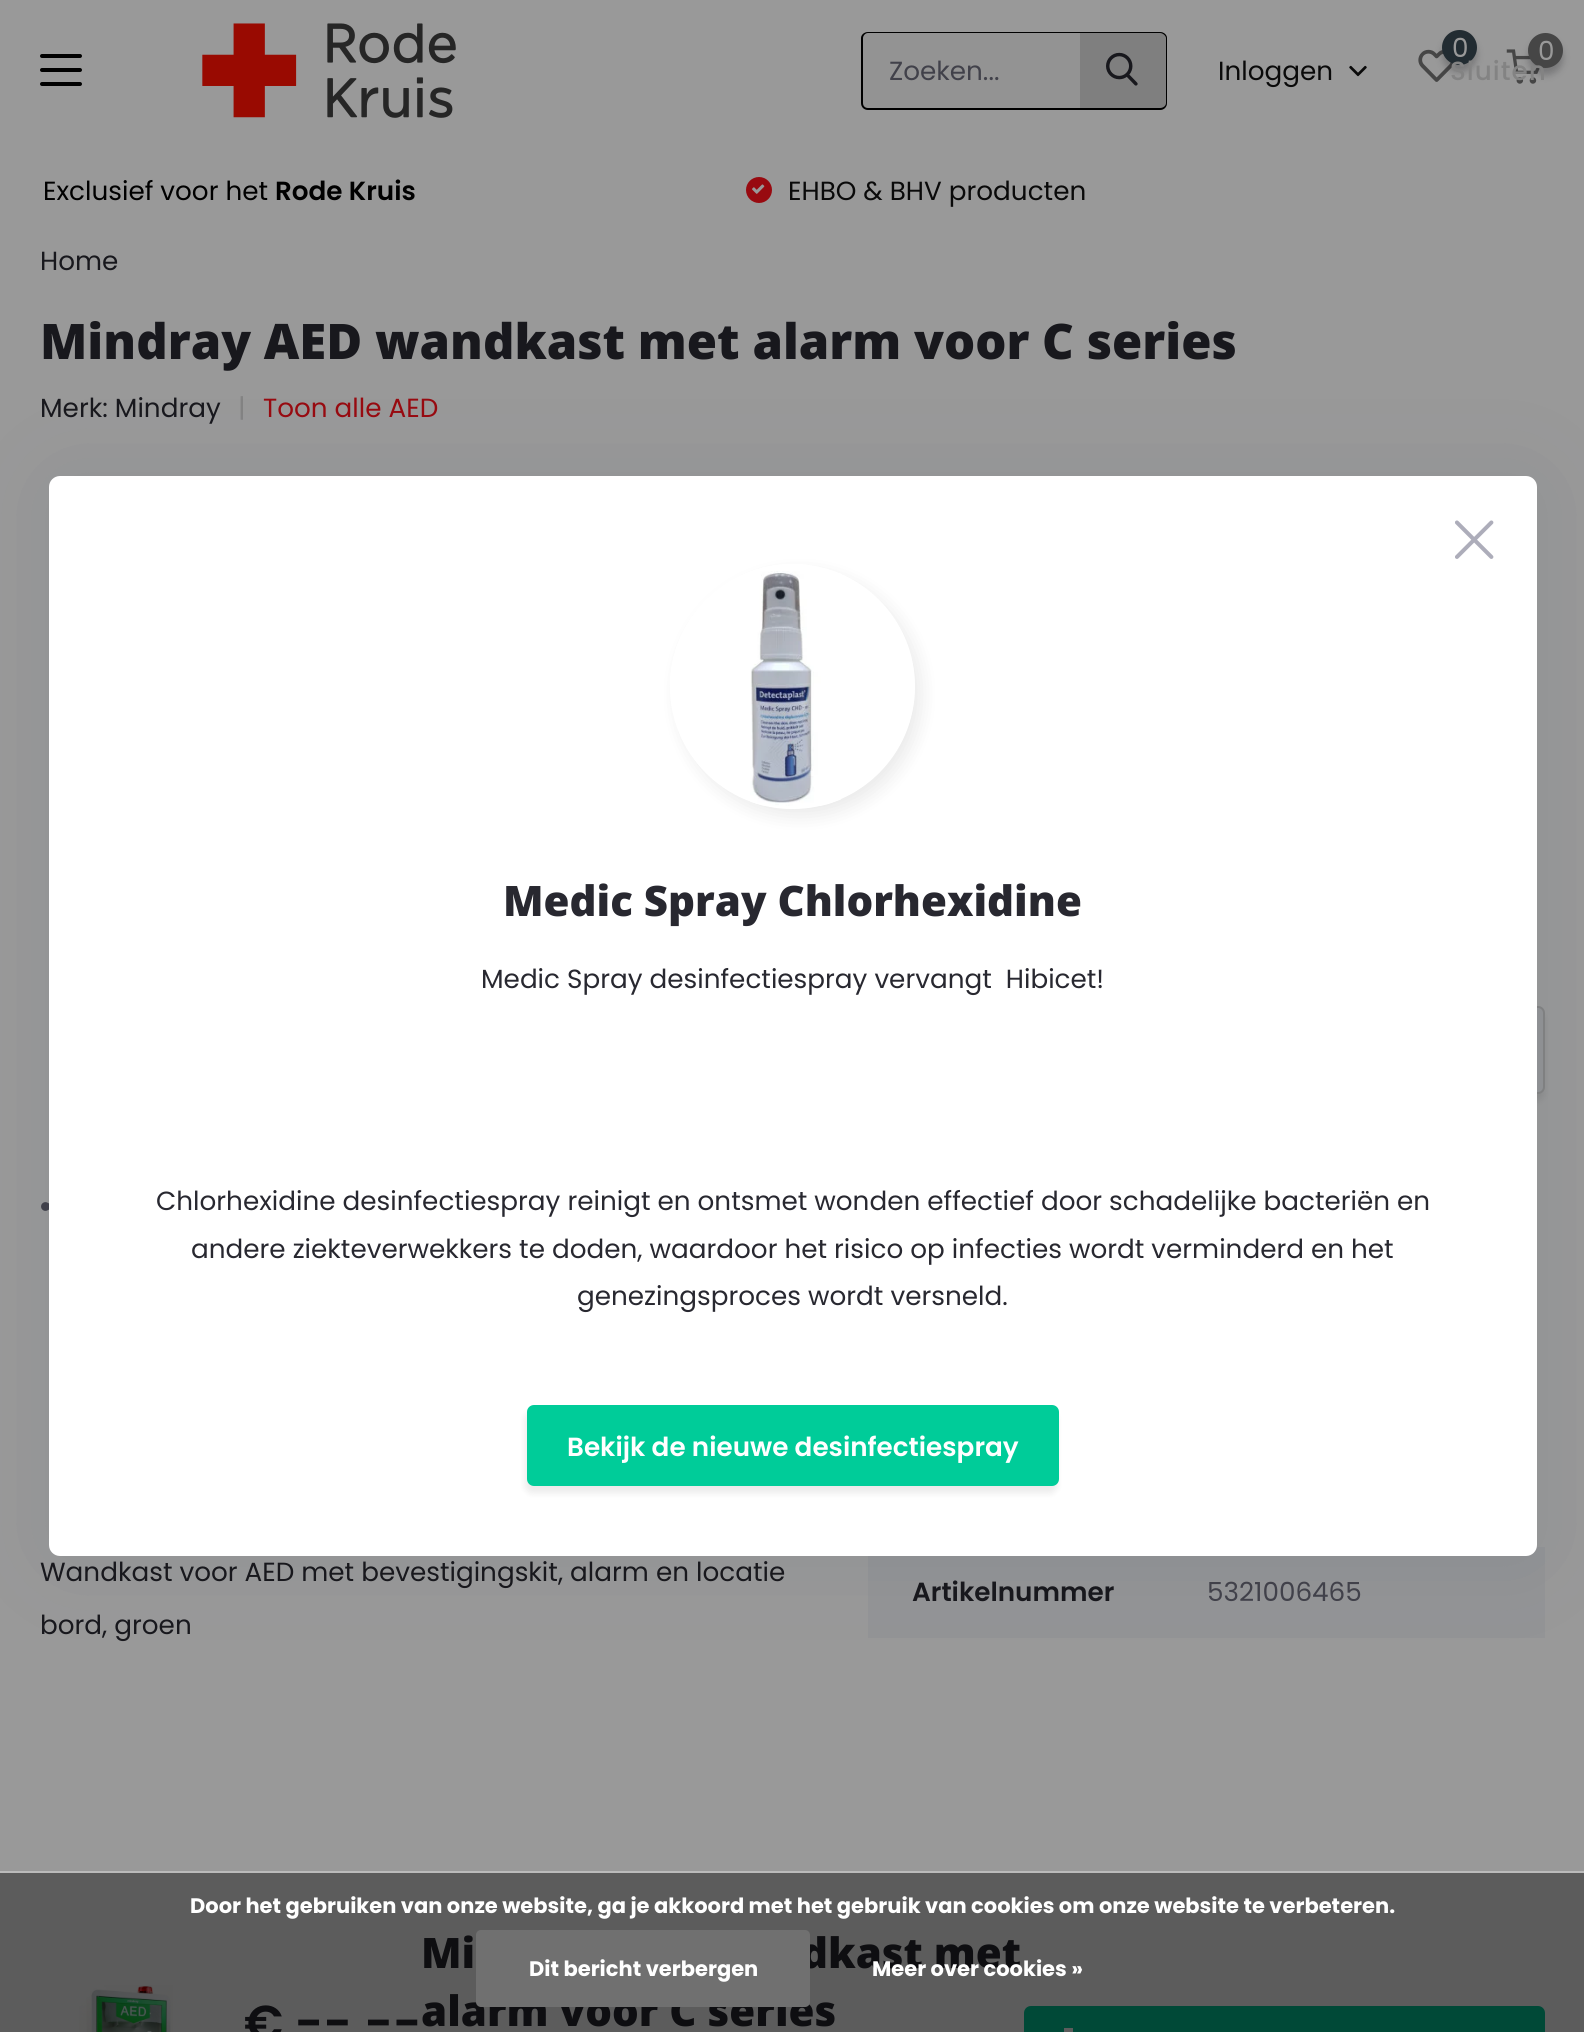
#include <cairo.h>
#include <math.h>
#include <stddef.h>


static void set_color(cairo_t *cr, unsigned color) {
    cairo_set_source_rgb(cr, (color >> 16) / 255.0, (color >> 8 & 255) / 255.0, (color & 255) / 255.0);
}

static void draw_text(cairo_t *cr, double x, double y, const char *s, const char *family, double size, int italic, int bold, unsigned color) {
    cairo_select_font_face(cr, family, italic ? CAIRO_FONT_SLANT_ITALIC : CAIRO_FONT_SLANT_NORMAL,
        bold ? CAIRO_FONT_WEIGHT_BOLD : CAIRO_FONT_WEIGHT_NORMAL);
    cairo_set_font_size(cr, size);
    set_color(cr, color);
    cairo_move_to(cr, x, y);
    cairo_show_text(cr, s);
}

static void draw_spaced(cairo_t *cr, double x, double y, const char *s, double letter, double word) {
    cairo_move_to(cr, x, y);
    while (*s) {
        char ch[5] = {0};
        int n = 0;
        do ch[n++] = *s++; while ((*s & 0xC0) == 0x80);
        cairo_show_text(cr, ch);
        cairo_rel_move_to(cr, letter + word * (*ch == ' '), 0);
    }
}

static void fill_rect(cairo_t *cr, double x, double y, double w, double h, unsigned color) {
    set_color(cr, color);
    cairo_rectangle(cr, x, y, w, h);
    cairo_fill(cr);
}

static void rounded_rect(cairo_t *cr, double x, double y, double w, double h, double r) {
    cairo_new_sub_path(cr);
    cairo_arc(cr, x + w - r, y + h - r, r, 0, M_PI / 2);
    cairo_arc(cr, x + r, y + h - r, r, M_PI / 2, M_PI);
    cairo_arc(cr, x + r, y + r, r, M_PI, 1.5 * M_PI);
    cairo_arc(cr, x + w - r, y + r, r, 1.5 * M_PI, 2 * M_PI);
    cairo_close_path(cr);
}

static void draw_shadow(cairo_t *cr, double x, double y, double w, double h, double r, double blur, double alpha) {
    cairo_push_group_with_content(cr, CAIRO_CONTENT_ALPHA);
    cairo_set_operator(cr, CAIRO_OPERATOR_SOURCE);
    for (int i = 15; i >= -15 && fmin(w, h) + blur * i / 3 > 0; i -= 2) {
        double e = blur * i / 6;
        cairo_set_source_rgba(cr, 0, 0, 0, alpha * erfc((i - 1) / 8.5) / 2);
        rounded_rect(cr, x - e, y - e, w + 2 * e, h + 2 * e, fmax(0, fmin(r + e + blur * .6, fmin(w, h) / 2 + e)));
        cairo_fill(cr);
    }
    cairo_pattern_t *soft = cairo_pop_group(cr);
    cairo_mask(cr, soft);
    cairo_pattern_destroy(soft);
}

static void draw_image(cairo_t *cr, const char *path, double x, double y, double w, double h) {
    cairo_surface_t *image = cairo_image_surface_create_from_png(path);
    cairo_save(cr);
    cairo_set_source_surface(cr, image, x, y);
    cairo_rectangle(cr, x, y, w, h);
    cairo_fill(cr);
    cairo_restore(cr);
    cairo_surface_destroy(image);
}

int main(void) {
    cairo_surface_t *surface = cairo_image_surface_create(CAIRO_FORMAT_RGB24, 1584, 2032);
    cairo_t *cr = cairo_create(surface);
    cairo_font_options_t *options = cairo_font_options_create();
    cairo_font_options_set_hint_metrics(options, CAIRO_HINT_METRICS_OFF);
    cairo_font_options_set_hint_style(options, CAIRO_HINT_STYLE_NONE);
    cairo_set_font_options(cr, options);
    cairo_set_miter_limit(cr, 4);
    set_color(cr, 0x999999);
    cairo_paint(cr);
    fill_rect(cr, 0, 1873, 1584, 159, 0x5C5C5C);
    set_color(cr, 0x000000);
    rounded_rect(cr, 40, 54, 42, 4, 2);
    cairo_fill(cr);
    rounded_rect(cr, 40, 68, 42, 4, 2);
    cairo_fill(cr);
    rounded_rect(cr, 40, 82, 42, 4, 2);
    cairo_fill(cr);
    draw_image(cr, "assets/img1.png", 202, 23, 254, 95);
    draw_image(cr, "assets/img2.png", 1418, 49, 36, 33);
    set_color(cr, 0x18181D);
    draw_shadow(cr, 1442, 37, 35, 35, 17.5, 3.5, 0.25);
    set_color(cr, 0x222C32);
    cairo_arc(cr, 1459.5, 47.5, 17.5, 0, 2 * M_PI);
    cairo_fill(cr);
    draw_text(cr, 1452, 57, "0", "Poppins", 26.25, 0, 0, 0x999999);
    draw_image(cr, "assets/img3.png", 1506, 49, 35, 35);
    set_color(cr, 0x18181D);
    draw_shadow(cr, 1528, 40, 35, 35, 17.5, 3.5, 0.25);
    set_color(cr, 0x464646);
    cairo_arc(cr, 1545.5, 50.5, 17.5, 0, 2 * M_PI);
    cairo_fill(cr);
    draw_text(cr, 1538, 60, "0", "Poppins", 26.25, 0, 0, 0x999999);
    set_color(cr, 0x939393);
    cairo_new_path(cr);
    cairo_move_to(cr, 868, 32);
    cairo_line_to(cr, 1080, 32);
    cairo_line_to(cr, 1080, 110);
    cairo_line_to(cr, 868, 110);
    cairo_curve_to(cr, 864, 110, 861, 107, 861, 103);
    cairo_line_to(cr, 861, 39);
    cairo_curve_to(cr, 861, 35, 864, 32, 868, 32);
    cairo_close_path(cr);
    cairo_fill(cr);
    set_color(cr, 0x000000);
    cairo_set_fill_rule(cr, CAIRO_FILL_RULE_EVEN_ODD);
    cairo_new_path(cr);
    cairo_move_to(cr, 868, 32);
    cairo_line_to(cr, 1080, 32);
    cairo_line_to(cr, 1080, 110);
    cairo_line_to(cr, 868, 110);
    cairo_curve_to(cr, 864, 110, 861, 107, 861, 103);
    cairo_line_to(cr, 861, 38);
    cairo_curve_to(cr, 861, 35, 864, 32, 868, 32);
    cairo_close_path(cr);
    cairo_move_to(cr, 868, 33);
    cairo_line_to(cr, 1080, 33);
    cairo_line_to(cr, 1080, 108);
    cairo_line_to(cr, 868, 108);
    cairo_curve_to(cr, 865, 108, 863, 106, 863, 103);
    cairo_line_to(cr, 863, 38);
    cairo_curve_to(cr, 863, 36, 865, 33, 868, 33);
    cairo_close_path(cr);
    cairo_fill(cr);
    draw_text(cr, 889, 80, "Zoeken...", "Poppins", 26.25, 0, 0, 0x41414A);
    set_color(cr, 0x7F7F7F);
    cairo_new_path(cr);
    cairo_move_to(cr, 1080, 32);
    cairo_line_to(cr, 1160, 32);
    cairo_curve_to(cr, 1164, 32, 1167, 35, 1167, 39);
    cairo_line_to(cr, 1167, 103);
    cairo_curve_to(cr, 1167, 107, 1164, 110, 1160, 110);
    cairo_line_to(cr, 1080, 110);
    cairo_close_path(cr);
    cairo_fill(cr);
    set_color(cr, 0x000000);
    cairo_new_path(cr);
    cairo_move_to(cr, 1080, 32);
    cairo_line_to(cr, 1160, 32);
    cairo_curve_to(cr, 1164, 32, 1167, 35, 1167, 38);
    cairo_line_to(cr, 1167, 103);
    cairo_curve_to(cr, 1167, 107, 1164, 110, 1160, 110);
    cairo_line_to(cr, 1080, 110);
    cairo_close_path(cr);
    cairo_move_to(cr, 1080, 33);
    cairo_line_to(cr, 1160, 33);
    cairo_curve_to(cr, 1163, 33, 1166, 36, 1166, 38);
    cairo_line_to(cr, 1166, 103);
    cairo_curve_to(cr, 1166, 106, 1163, 108, 1160, 108);
    cairo_line_to(cr, 1080, 108);
    cairo_close_path(cr);
    cairo_fill(cr);
    draw_image(cr, "assets/img4.png", 1106, 52, 32, 34);
    draw_text(cr, 1218, 80, "Inloggen", "Poppins", 26.25, 0, 0, 0x0A0A0A);
    draw_image(cr, "assets/img5.png", 1349, 65, 18, 12);
    cairo_select_font_face(cr, "Poppins Medium", CAIRO_FONT_SLANT_NORMAL, CAIRO_FONT_WEIGHT_NORMAL);
    set_color(cr, 0x838383);
    draw_spaced(cr, 1450, 80, "Sluiten", 1, 0);
    draw_text(cr, 43, 200, "Exclusief voor het", "Poppins", 26.25, 0, 0, 0x000000);
    draw_text(cr, 275, 200, "Rode Kruis", "Poppins SemiBold", 26.25, 0, 0, 0x000000);
    set_color(cr, 0x980A10);
    cairo_new_path(cr);
    cairo_arc(cr, 759, 190, 13, 0, 2 * M_PI);
    cairo_fill(cr);
    draw_image(cr, "assets/img6.png", 752, 184, 13, 10);
    draw_text(cr, 788, 200, "EHBO & BHV producten", "Poppins", 26.25, 0, 0, 0x0A0A0A);
    draw_text(cr, 40, 270, "Home", "Poppins", 26.25, 0, 0, 0x18181D);
    draw_text(cr, 40, 359, "Mindray AED wandkast met alarm voor C series", "Open Sans ExtraBold", 49, 0, 0, 0x18181D);
    draw_text(cr, 40, 417, "Merk: Mindray", "Poppins", 26.25, 0, 0, 0x18181D);
    draw_text(cr, 238, 417, "|", "Poppins", 26.25, 0, 0, 0x838383);
    draw_text(cr, 263, 417, "Toon alle AED", "Poppins", 26.25, 0, 0, 0x980A10);
    set_color(cr, 0x000000);
    draw_shadow(cr, 1456, 1013, 88, 88, 7, 3.5, 0.08);
    set_color(cr, 0x939496);
    rounded_rect(cr, 1459, 1007, 85, 86, 6);
    cairo_fill_preserve(cr);
    set_color(cr, 0x838383);
    cairo_stroke(cr);
    draw_image(cr, "assets/img7.png", 41, 1202, 8, 9);
    fill_rect(cr, 868, 1547, 677, 91, 0x939496);
    set_color(cr, 0x263F4D);
    draw_shadow(cr, 53, 480, 1487, 1079, 11, 44, 0.1);
    set_color(cr, 0xFFFFFF);
    rounded_rect(cr, 49, 476, 1488, 1080, 11);
    cairo_fill(cr);
    draw_image(cr, "assets/img8.png", 1455, 520, 39, 39);
    cairo_save(cr);
    cairo_new_path(cr);
    cairo_move_to(cr, 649, 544);
    cairo_line_to(cr, 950, 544);
    cairo_line_to(cr, 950, 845);
    cairo_line_to(cr, 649, 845);
    cairo_close_path(cr);
    cairo_move_to(cr, 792.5, 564);
    cairo_curve_to(cr, 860, 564, 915, 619, 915, 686.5);
    cairo_curve_to(cr, 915, 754, 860, 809, 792.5, 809);
    cairo_curve_to(cr, 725, 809, 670, 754, 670, 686.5);
    cairo_curve_to(cr, 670, 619, 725, 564, 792.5, 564);
    cairo_close_path(cr);
    cairo_clip(cr);
    set_color(cr, 0x000000);
    draw_shadow(cr, 677, 572, 245, 245, 122.5, 9, 0.08);
    cairo_restore(cr);
    draw_image(cr, "assets/img9.png", 750, 571, 91, 235);
    draw_text(cr, 503, 916, "Medic Spray Chlorhexidine", "Open Sans ExtraBold", 42, 0, 0, 0x282830);
    draw_text(cr, 481, 988, "Medic Spray desinfectiespray vervangt  Hibicet!", "Poppins", 26.25, 0, 0, 0x282830);
    draw_text(cr, 156, 1210, "Chlorhexidine desinfectiespray reinigt en ontsmet wonden effectief door schadelijke bacteriën en", "Poppins", 26.25, 0, 0, 0x282830);
    draw_text(cr, 191, 1258, "andere ziekteverwekkers te doden, waardoor het risico op infecties wordt verminderd en het", "Poppins", 26.25, 0, 0, 0x282830);
    draw_text(cr, 577, 1305, "genezingsproces wordt versneld.", "Poppins", 26.25, 0, 0, 0x282830);
    set_color(cr, 0x000000);
    draw_shadow(cr, 525, 1412, 532, 81, 7, 3.5, 0.08);
    set_color(cr, 0x00CC99);
    rounded_rect(cr, 527, 1405, 532, 81, 7);
    cairo_fill(cr);
    draw_text(cr, 567, 1456, "Bekijk de nieuwe desinfectiespray", "Poppins SemiBold", 26.25, 0, 0, 0xFFFFFF);
    draw_text(cr, 40, 1581, "Wandkast voor AED met bevestigingskit, alarm en locatie", "Poppins", 26.25, 0, 0, 0x18181D);
    draw_text(cr, 40, 1634, "bord, groen", "Poppins", 26.25, 0, 0, 0x18181D);
    draw_text(cr, 912, 1601, "Artikelnummer", "Poppins SemiBold", 26.25, 0, 0, 0x18181D);
    draw_text(cr, 1207, 1601, "5321006465", "Poppins", 26.25, 0, 0, 0x41414A);
    fill_rect(cr, 0, 1871, 1584, 2, 0xBBBBBB);
    draw_text(cr, 190, 1913, "Door het gebruiken van onze website, ga je akkoord met het gebruik van cookies om onze website te verbeteren.", "Poppins", 21, 0, 1, 0xFFFFFF);
    draw_text(cr, 801, 1968, "dkast met", "Open Sans ExtraBold", 42, 0, 0, 0x0E0E11);
    draw_text(cr, 421, 2026, "alarm voor C series", "Open Sans ExtraBold", 42, 0, 0, 0x0E0E11);
    set_color(cr, 0x707070);
    rounded_rect(cr, 476, 1930, 334, 77, 5);
    cairo_fill(cr);
    draw_text(cr, 529, 1976, "Dit bericht verbergen", "Poppins", 21, 0, 1, 0xFFFFFF);
    draw_text(cr, 872, 1976, "Meer over cookies »", "Poppins", 21, 0, 1, 0xFFFFFF);
    draw_image(cr, "assets/img10.png", 79, 1985, 94, 47);
    draw_text(cr, 244, 2040, "€ --,--", "Poppins SemiBold", 49, 0, 0, 0x0E0E11);
    draw_text(cr, 421, 1968, "Mi", "Open Sans ExtraBold", 42, 0, 0, 0x0E0E11);
    set_color(cr, 0x004937);
    rounded_rect(cr, 1024, 2006, 521, 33, 7);
    cairo_fill(cr);
    fill_rect(cr, 1064, 2028, 9, 4, 0x5C5C5C);
    cairo_surface_write_to_png(surface, "output.png");
    cairo_font_options_destroy(options);
    cairo_destroy(cr);
    cairo_surface_destroy(surface);
    return 0;
}
